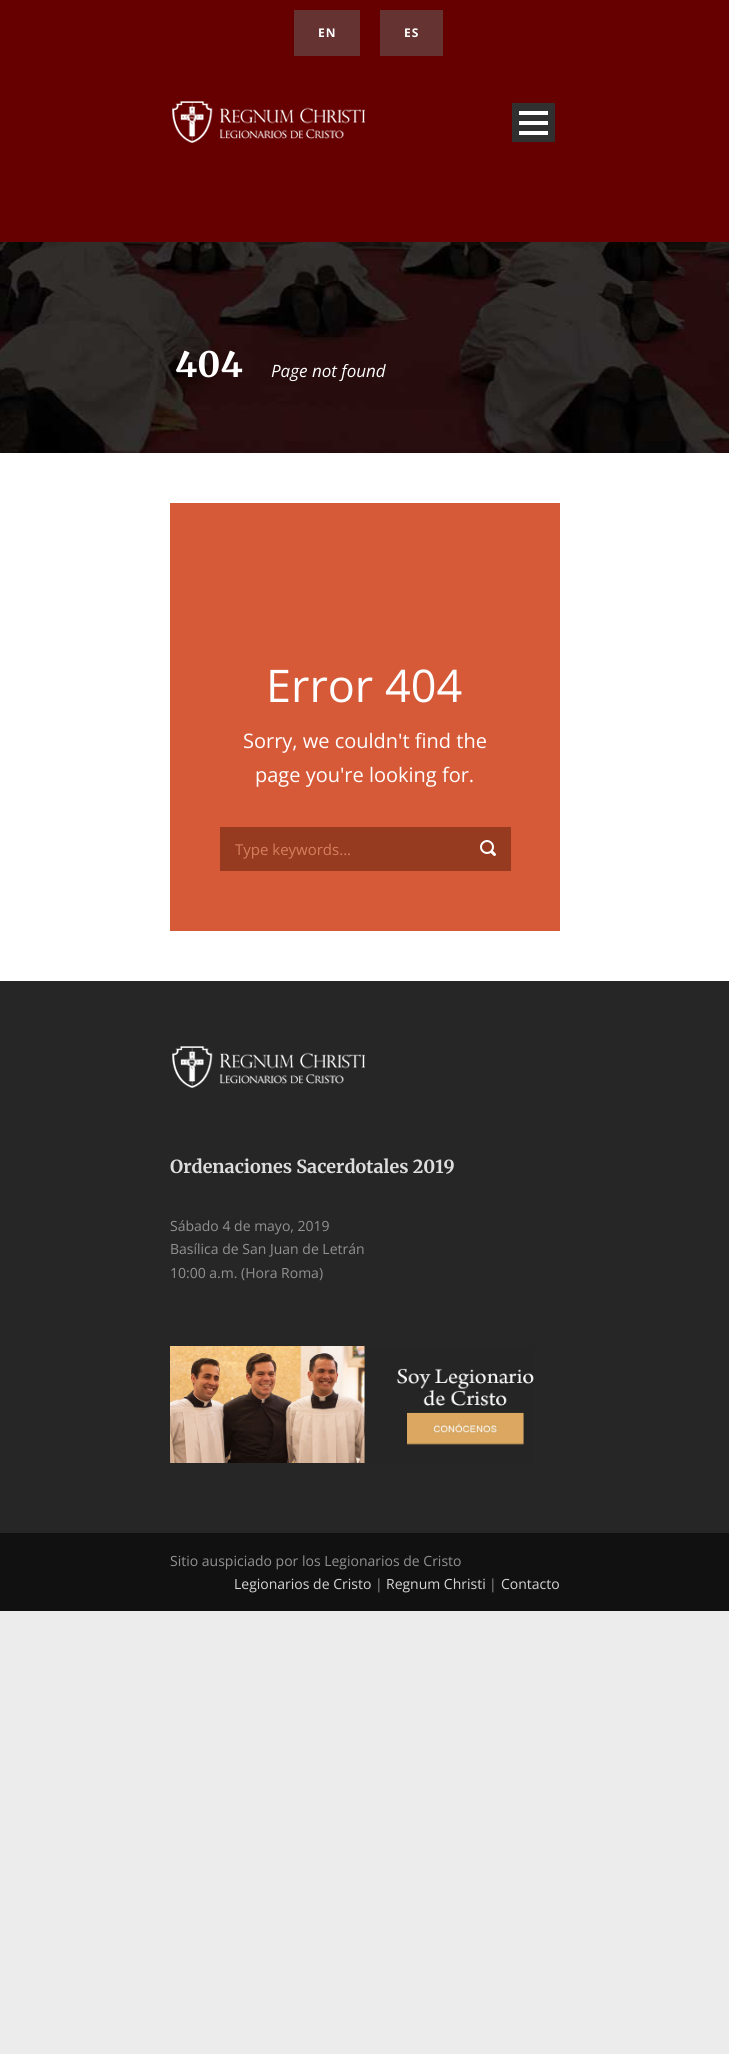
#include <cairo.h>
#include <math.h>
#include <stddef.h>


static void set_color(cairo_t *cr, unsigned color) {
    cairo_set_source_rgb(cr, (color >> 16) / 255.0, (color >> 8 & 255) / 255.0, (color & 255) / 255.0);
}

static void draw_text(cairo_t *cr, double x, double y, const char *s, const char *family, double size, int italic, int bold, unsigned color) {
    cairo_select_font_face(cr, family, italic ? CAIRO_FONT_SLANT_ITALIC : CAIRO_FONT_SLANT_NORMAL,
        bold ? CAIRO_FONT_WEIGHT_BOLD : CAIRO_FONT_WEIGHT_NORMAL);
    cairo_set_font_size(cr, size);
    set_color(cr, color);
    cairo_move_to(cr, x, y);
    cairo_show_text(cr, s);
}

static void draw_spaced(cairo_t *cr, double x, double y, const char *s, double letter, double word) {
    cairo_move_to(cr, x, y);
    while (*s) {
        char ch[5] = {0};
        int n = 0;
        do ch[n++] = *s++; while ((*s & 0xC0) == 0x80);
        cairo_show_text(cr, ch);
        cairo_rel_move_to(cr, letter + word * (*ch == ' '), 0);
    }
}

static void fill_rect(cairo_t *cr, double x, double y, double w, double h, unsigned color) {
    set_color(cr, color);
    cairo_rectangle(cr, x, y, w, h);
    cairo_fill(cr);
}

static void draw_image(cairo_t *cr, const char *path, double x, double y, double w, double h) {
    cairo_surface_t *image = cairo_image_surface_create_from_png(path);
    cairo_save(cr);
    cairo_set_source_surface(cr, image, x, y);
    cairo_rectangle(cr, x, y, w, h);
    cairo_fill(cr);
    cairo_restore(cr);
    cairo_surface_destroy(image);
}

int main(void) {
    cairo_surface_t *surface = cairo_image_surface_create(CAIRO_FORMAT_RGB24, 729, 2054);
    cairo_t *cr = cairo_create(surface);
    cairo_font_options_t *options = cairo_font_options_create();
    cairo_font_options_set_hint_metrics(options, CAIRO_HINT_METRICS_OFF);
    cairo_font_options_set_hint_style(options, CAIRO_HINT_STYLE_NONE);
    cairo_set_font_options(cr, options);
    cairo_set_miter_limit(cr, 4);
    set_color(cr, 0xECECEC);
    cairo_paint(cr);
    fill_rect(cr, 0, 453, 729, 528, 0xFFFFFF);
    fill_rect(cr, 0, 0, 729, 242, 0x660000);
    fill_rect(cr, 294, 10, 66, 46, 0x663333);
    cairo_select_font_face(cr, "Open Sans", CAIRO_FONT_SLANT_NORMAL, CAIRO_FONT_WEIGHT_BOLD);
    cairo_set_font_size(cr, 12);
    set_color(cr, 0xFFFFFF);
    draw_spaced(cr, 318, 37, "EN", 1, 0);
    fill_rect(cr, 380, 10, 63, 46, 0x663333);
    set_color(cr, 0xFFFFFF);
    draw_spaced(cr, 404, 37, "ES", 1, 0);
    draw_image(cr, "assets/img1.png", 172, 101, 193, 42);
    fill_rect(cr, 512, 103, 43, 39, 0x303030);
    fill_rect(cr, 519, 131, 29, 4, 0xFFFFFF);
    fill_rect(cr, 519, 121, 29, 4, 0xFFFFFF);
    fill_rect(cr, 519, 111, 29, 4, 0xFFFFFF);
    draw_image(cr, "assets/img2.png", 0, 242, 729, 211);
    draw_text(cr, 175, 377, "404", "Merriweather", 35, 0, 1, 0xFFFFFF);
    draw_text(cr, 271, 377, "Page not found", "Open Sans", 17, 1, 0, 0xFFFFFF);
    fill_rect(cr, 170, 503, 390, 428, 0xD65938);
    draw_text(cr, 266, 702, "Error 404", "Open Sans", 45, 0, 0, 0xFFFFFF);
    draw_text(cr, 243, 748, "Sorry, we couldn't find the", "Open Sans", 20, 0, 0, 0xFFFFFF);
    draw_text(cr, 255, 782, "page you're looking for.", "Open Sans", 20, 0, 0, 0xFFFFFF);
    fill_rect(cr, 220, 827, 291, 44, 0x963A20);
    draw_text(cr, 235, 855, "Type keywords...", "Open Sans", 15, 0, 0, 0xD57F5C);
    draw_image(cr, "assets/img3.png", 480, 840, 16, 16);
    fill_rect(cr, 0, 981, 729, 552, 0x262626);
    draw_image(cr, "assets/img4.png", 172, 1046, 193, 42);
    draw_text(cr, 170, 1173, "Ordenaciones Sacerdotales 2019", "Merriweather", 18, 0, 1, 0xDDDDDD);
    draw_text(cr, 170, 1231, "Sábado 4 de mayo, 2019", "Open Sans", 14, 0, 0, 0x919191);
    draw_text(cr, 170, 1254, "Basílica de San Juan de Letrán", "Open Sans", 14, 0, 0, 0x919191);
    draw_text(cr, 170, 1278, "10:00 a.m. (Hora Roma)", "Open Sans", 14, 0, 0, 0x919191);
    draw_image(cr, "assets/img5.png", 170, 1346, 364, 117);
    fill_rect(cr, 0, 1533, 729, 78, 0x111111);
    draw_text(cr, 170, 1566, "Sitio auspiciado por los Legionarios de Cristo", "Open Sans", 14, 0, 0, 0x919191);
    draw_text(cr, 234, 1589, "Legionarios de Cristo", "Open Sans", 14, 0, 0, 0xD6D6D6);
    draw_text(cr, 375, 1589, "|", "Open Sans", 14, 0, 0, 0x919191);
    draw_text(cr, 386, 1589, "Regnum Christi", "Open Sans", 14, 0, 0, 0xD6D6D6);
    draw_text(cr, 489, 1589, "|", "Open Sans", 14, 0, 0, 0x919191);
    draw_text(cr, 501, 1589, "Contacto", "Open Sans", 14, 0, 0, 0xD6D6D6);
    cairo_surface_write_to_png(surface, "output.png");
    cairo_font_options_destroy(options);
    cairo_destroy(cr);
    cairo_surface_destroy(surface);
    return 0;
}
